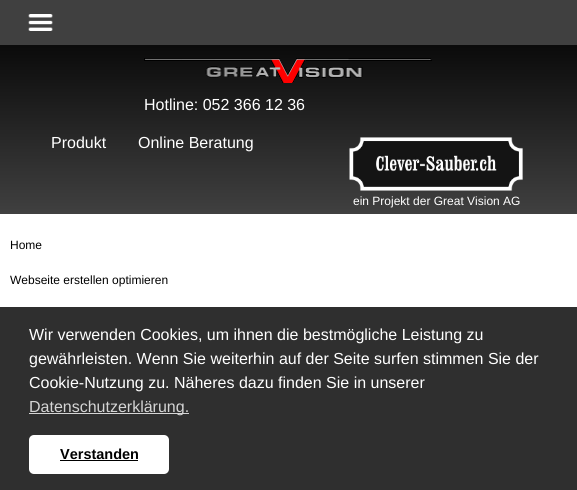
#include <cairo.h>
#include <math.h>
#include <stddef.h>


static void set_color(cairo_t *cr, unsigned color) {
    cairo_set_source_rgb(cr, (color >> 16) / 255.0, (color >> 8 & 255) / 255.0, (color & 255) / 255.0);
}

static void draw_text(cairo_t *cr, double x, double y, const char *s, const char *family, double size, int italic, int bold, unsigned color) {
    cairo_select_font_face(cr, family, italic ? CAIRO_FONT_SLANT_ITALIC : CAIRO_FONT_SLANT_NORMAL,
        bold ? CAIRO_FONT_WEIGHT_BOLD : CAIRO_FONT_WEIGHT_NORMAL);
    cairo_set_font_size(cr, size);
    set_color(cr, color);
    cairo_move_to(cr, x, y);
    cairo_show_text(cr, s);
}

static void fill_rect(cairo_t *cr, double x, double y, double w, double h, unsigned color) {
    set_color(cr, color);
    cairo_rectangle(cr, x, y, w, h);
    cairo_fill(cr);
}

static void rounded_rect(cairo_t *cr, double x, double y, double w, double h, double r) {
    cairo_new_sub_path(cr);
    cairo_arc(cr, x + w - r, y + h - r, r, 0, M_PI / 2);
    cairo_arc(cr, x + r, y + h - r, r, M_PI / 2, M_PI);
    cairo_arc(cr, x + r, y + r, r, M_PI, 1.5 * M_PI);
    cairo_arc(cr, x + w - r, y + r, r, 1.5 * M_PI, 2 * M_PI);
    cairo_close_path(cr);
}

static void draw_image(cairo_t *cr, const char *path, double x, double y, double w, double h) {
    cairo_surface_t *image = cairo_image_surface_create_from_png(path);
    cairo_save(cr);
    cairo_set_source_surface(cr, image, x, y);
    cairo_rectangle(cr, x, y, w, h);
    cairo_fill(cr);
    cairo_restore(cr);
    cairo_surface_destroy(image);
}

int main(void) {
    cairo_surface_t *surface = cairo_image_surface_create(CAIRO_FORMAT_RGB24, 577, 490);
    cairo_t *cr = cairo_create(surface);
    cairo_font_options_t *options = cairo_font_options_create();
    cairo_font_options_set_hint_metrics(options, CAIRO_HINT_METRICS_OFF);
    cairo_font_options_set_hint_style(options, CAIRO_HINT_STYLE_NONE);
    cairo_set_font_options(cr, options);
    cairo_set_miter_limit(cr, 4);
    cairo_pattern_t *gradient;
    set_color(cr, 0xFFFFFF);
    cairo_paint(cr);
    fill_rect(cr, 0, 0, 577, 45, 0x404040);
    draw_image(cr, "assets/img1.png", 28, 14, 25, 17);
    gradient = cairo_pattern_create_linear(289, 12, 289, 214);
    cairo_pattern_add_color_stop_rgba(gradient, 0, 0, 0, 0, 1);
    cairo_pattern_add_color_stop_rgba(gradient, 1, 0.251, 0.251, 0.251, 1);
    cairo_set_source(cr, gradient);
    cairo_pattern_destroy(gradient);
    cairo_rectangle(cr, 0, 45, 577, 169);
    cairo_fill(cr);
    draw_image(cr, "assets/img2.png", 144, 58, 289, 25);
    draw_text(cr, 144, 110, "Hotline: 052 366 12 36", "Liberation Sans", 16, 0, 0, 0xFFFFFF);
    draw_text(cr, 51, 148, "Produkt", "Liberation Sans", 16, 0, 0, 0xFFFFFF);
    draw_text(cr, 138, 148, "Online Beratung", "Liberation Sans", 16, 0, 0, 0xFFFFFF);
    draw_image(cr, "assets/img3.png", 349, 137, 174, 54);
    draw_text(cr, 353, 205, "ein Projekt der Great Vision AG", "Liberation Sans", 12, 0, 0, 0xFFFFFF);
    draw_text(cr, 10, 249, "Home", "Liberation Sans", 12, 0, 0, 0x000000);
    draw_text(cr, 10, 284, "Webseite erstellen optimieren", "Liberation Sans", 12, 0, 0, 0x000000);
    fill_rect(cr, 0, 307, 577, 183, 0x2F2F2F);
    draw_text(cr, 29, 340, "Wir verwenden Cookies, um ihnen die bestmögliche Leistung zu", "Liberation Sans", 16, 0, 0, 0xFFFFFF);
    draw_text(cr, 29, 364, "gewährleisten. Wenn Sie weiterhin auf der Seite surfen stimmen Sie der", "Liberation Sans", 16, 0, 0, 0xFFFFFF);
    draw_text(cr, 29, 388, "Cookie-Nutzung zu. Näheres dazu finden Sie in unserer", "Liberation Sans", 16, 0, 0, 0xFFFFFF);
    fill_rect(cr, 29, 413, 160, 1, 0xD5D5D5);
    draw_text(cr, 29, 412, "Datenschutzerklärung.", "Liberation Sans", 16, 0, 0, 0xD5D5D5);
    set_color(cr, 0xFFFFFF);
    rounded_rect(cr, 29, 435, 140, 39, 5);
    cairo_fill(cr);
    draw_text(cr, 60, 459, "Verstanden", "Liberation Sans", 14.5, 0, 1, 0x000000);
    fill_rect(cr, 60, 460, 78, 1, 0x000000);
    cairo_surface_write_to_png(surface, "output.png");
    cairo_font_options_destroy(options);
    cairo_destroy(cr);
    cairo_surface_destroy(surface);
    return 0;
}
